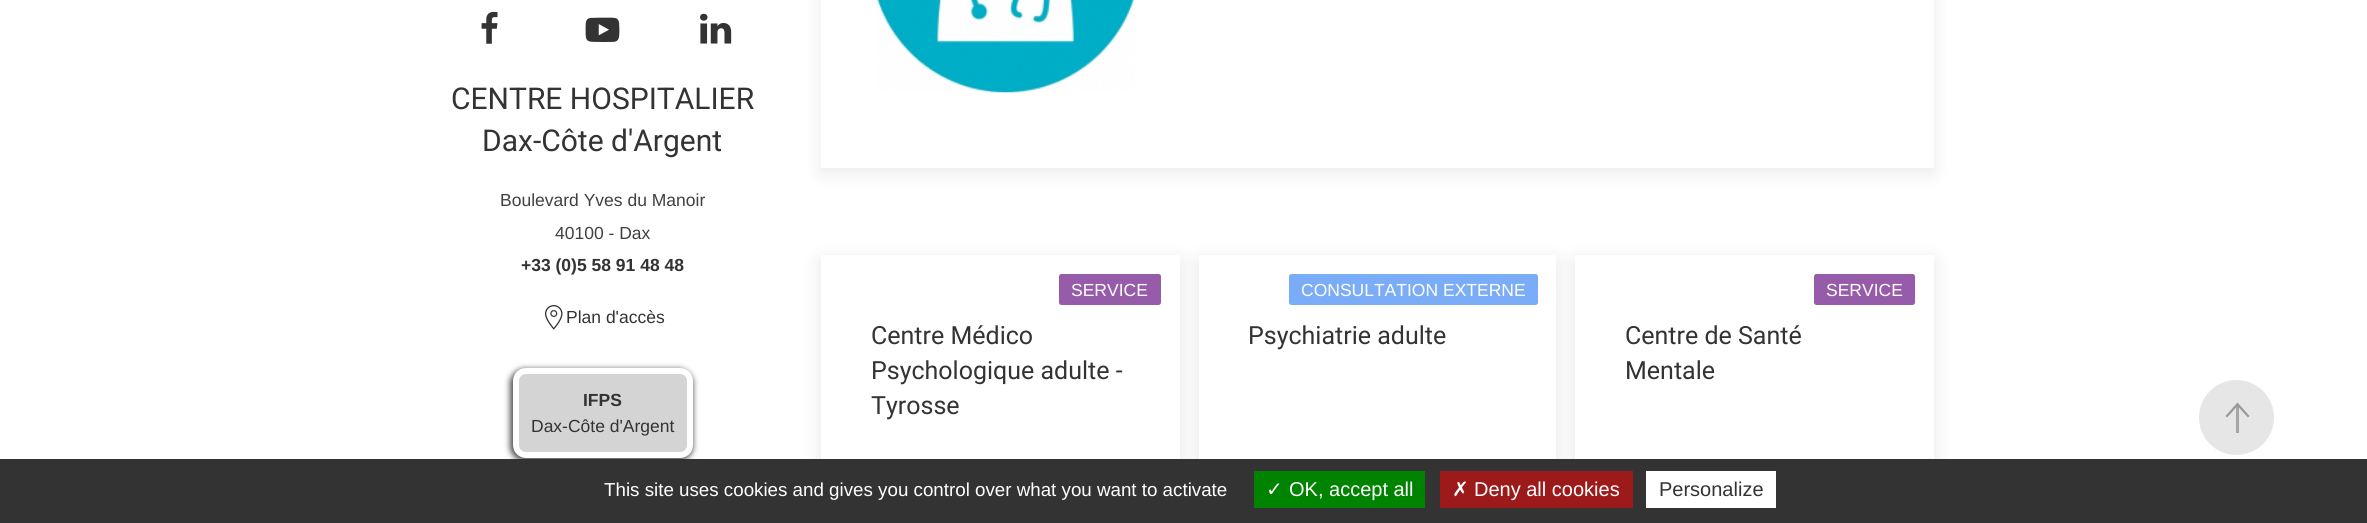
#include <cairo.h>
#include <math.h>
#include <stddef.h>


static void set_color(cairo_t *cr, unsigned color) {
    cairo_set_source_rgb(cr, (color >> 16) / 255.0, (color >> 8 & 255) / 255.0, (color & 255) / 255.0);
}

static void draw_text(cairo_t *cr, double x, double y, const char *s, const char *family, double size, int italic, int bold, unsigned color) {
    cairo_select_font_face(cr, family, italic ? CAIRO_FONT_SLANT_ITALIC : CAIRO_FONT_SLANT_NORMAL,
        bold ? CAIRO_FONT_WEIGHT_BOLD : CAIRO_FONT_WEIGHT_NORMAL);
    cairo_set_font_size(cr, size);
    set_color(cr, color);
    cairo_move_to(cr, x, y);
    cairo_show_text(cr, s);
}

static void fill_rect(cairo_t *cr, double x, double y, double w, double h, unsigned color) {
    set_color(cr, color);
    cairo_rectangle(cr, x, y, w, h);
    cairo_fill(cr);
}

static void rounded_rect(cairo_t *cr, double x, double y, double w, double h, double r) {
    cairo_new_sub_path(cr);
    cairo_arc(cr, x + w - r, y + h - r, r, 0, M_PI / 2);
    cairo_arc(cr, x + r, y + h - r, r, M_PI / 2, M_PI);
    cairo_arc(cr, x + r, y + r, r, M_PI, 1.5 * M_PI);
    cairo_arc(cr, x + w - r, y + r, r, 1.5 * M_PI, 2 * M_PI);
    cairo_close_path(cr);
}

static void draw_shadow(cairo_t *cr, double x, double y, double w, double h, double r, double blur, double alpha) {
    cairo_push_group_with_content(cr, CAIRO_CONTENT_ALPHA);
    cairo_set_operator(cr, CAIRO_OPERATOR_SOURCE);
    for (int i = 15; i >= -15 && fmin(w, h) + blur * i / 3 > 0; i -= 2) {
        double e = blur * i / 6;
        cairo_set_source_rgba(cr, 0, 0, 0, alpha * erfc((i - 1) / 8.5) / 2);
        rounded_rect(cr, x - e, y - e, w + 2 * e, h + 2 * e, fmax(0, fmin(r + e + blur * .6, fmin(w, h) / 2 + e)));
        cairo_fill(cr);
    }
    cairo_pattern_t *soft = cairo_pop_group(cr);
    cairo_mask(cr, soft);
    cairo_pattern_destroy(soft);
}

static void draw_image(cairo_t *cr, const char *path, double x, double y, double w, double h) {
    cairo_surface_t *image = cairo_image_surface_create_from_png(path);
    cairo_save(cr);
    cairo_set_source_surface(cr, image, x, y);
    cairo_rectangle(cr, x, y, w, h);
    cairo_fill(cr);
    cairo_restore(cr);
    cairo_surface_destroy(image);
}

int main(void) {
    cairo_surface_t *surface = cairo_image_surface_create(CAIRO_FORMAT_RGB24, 2367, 523);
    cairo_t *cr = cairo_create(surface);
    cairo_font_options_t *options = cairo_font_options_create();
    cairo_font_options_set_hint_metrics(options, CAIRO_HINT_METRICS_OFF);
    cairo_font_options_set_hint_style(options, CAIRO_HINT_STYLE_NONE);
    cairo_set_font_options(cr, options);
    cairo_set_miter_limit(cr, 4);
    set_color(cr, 0xFFFFFF);
    cairo_paint(cr);
    draw_image(cr, "assets/img1.png", 481, 11, 17, 33);
    draw_image(cr, "assets/img2.png", 585, 17, 35, 25);
    draw_image(cr, "assets/img3.png", 700, 13, 32, 31);
    draw_text(cr, 451, 109, "CENTRE HOSPITALIER", "Roboto", 30, 0, 0, 0x333333);
    draw_text(cr, 482, 151, "Dax-Côte d'Argent", "Roboto", 30, 0, 0, 0x333333);
    draw_text(cr, 500, 206, "Boulevard Yves du Manoir", "Liberation Sans", 17.5, 0, 0, 0x404040);
    draw_text(cr, 555, 239, "40100 - Dax", "Liberation Sans", 17.5, 0, 0, 0x404040);
    draw_text(cr, 521, 271, "+33 (0)5 58 91 48 48", "Liberation Sans", 17.5, 0, 1, 0x333333);
    draw_image(cr, "assets/img4.png", 545, 305, 18, 25);
    draw_text(cr, 566, 323, "Plan d'accès", "Liberation Sans", 17.5, 0, 0, 0x333333);
    set_color(cr, 0x000000);
    draw_shadow(cr, 510, 369, 183, 92, 14, 3, 0.7);
    set_color(cr, 0xD4D4D4);
    rounded_rect(cr, 516, 371, 174, 84, 10);
    cairo_fill_preserve(cr);
    set_color(cr, 0xFFFFFF);
    cairo_set_line_width(cr, 6);
    cairo_stroke(cr);
    draw_text(cr, 583, 406, "IFPS", "Liberation Sans", 17.5, 0, 1, 0x333333);
    draw_text(cr, 531, 432, "Dax-Côte d'Argent", "Liberation Sans", 17.5, 0, 0, 0x333333);
    set_color(cr, 0x000000);
    draw_shadow(cr, 821, -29, 1113, 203, 0, 9.5, 0.08);
    fill_rect(cr, 821, 0, 1113, 168, 0xFFFFFF);
    draw_image(cr, "assets/img5.png", 876, 0, 259, 93);
    set_color(cr, 0x000000);
    draw_shadow(cr, 821, 261, 359, 218, 0, 9.5, 0.1);
    fill_rect(cr, 821, 255, 359, 204, 0xFFFFFF);
    set_color(cr, 0x965CA9);
    rounded_rect(cr, 1059, 274, 102, 31, 2.5);
    cairo_fill(cr);
    draw_text(cr, 1071, 296, "SERVICE", "Liberation Sans", 17.5, 0, 0, 0xFFFFFF);
    draw_text(cr, 871, 344, "Centre Médico", "Roboto", 25, 0, 0, 0x333333);
    draw_text(cr, 871, 379, "Psychologique adulte -", "Roboto", 25, 0, 0, 0x333333);
    draw_text(cr, 871, 414, "Tyrosse", "Roboto", 25, 0, 0, 0x333333);
    set_color(cr, 0x000000);
    draw_shadow(cr, 1199, 261, 357, 218, 0, 9.5, 0.1);
    fill_rect(cr, 1199, 255, 357, 204, 0xFFFFFF);
    set_color(cr, 0x7BACF8);
    rounded_rect(cr, 1289, 274, 249, 31, 2.5);
    cairo_fill(cr);
    draw_text(cr, 1301, 296, "CONSULTATION EXTERNE", "Liberation Sans", 17.5, 0, 0, 0xFFFFFF);
    draw_text(cr, 1248, 344, "Psychiatrie adulte", "Roboto", 25, 0, 0, 0x333333);
    set_color(cr, 0x000000);
    draw_shadow(cr, 1575, 261, 359, 218, 0, 9.5, 0.1);
    fill_rect(cr, 1575, 255, 359, 204, 0xFFFFFF);
    set_color(cr, 0x965CA9);
    rounded_rect(cr, 1814, 274, 101, 31, 2.5);
    cairo_fill(cr);
    draw_text(cr, 1826, 296, "SERVICE", "Liberation Sans", 17.5, 0, 0, 0xFFFFFF);
    draw_text(cr, 1625, 344, "Centre de Santé", "Roboto", 25, 0, 0, 0x333333);
    draw_text(cr, 1625, 379, "Mentale", "Roboto", 25, 0, 0, 0x333333);
    set_color(cr, 0xE6E6E6);
    cairo_new_path(cr);
    cairo_arc(cr, 2236.5, 417.5, 37.5, 0, 2 * M_PI);
    cairo_fill(cr);
    set_color(cr, 0x999999);
    cairo_new_path(cr);
    cairo_move_to(cr, 2237.5, 402.5);
    cairo_line_to(cr, 2249.5, 416);
    cairo_line_to(cr, 2248, 417.5);
    cairo_line_to(cr, 2237.5, 406);
    cairo_line_to(cr, 2227, 417.5);
    cairo_line_to(cr, 2225.5, 416);
    cairo_close_path(cr);
    cairo_fill(cr);
    cairo_set_source_rgba(cr, 0.6, 0.6, 0.6, 0.83);
    cairo_rectangle(cr, 2236, 405, 3, 28);
    cairo_fill(cr);
    fill_rect(cr, 0, 459, 2367, 64, 0x333333);
    draw_text(cr, 604, 496, "This site uses cookies and gives you control over what you want to activate", "Liberation Sans", 18.75, 0, 0, 0xFFFFFF);
    fill_rect(cr, 1254, 471, 171, 37, 0x008300);
    draw_text(cr, 1266, 496, "✓", "DejaVu Sans", 20, 0, 0, 0xFFFFFF);
    draw_text(cr, 1289, 496, "OK, accept all", "Liberation Sans", 20, 0, 0, 0xFFFFFF);
    fill_rect(cr, 1440, 471, 193, 37, 0x9C1A1A);
    draw_text(cr, 1452, 496, "✗", "DejaVu Sans", 20, 0, 0, 0xFFFFFF);
    draw_text(cr, 1474, 496, "Deny all cookies", "Liberation Sans", 20, 0, 0, 0xFFFFFF);
    fill_rect(cr, 1646, 471, 130, 37, 0xFFFFFF);
    draw_text(cr, 1659, 496, "Personalize", "Liberation Sans", 20, 0, 0, 0x333333);
    cairo_surface_write_to_png(surface, "output.png");
    cairo_font_options_destroy(options);
    cairo_destroy(cr);
    cairo_surface_destroy(surface);
    return 0;
}
